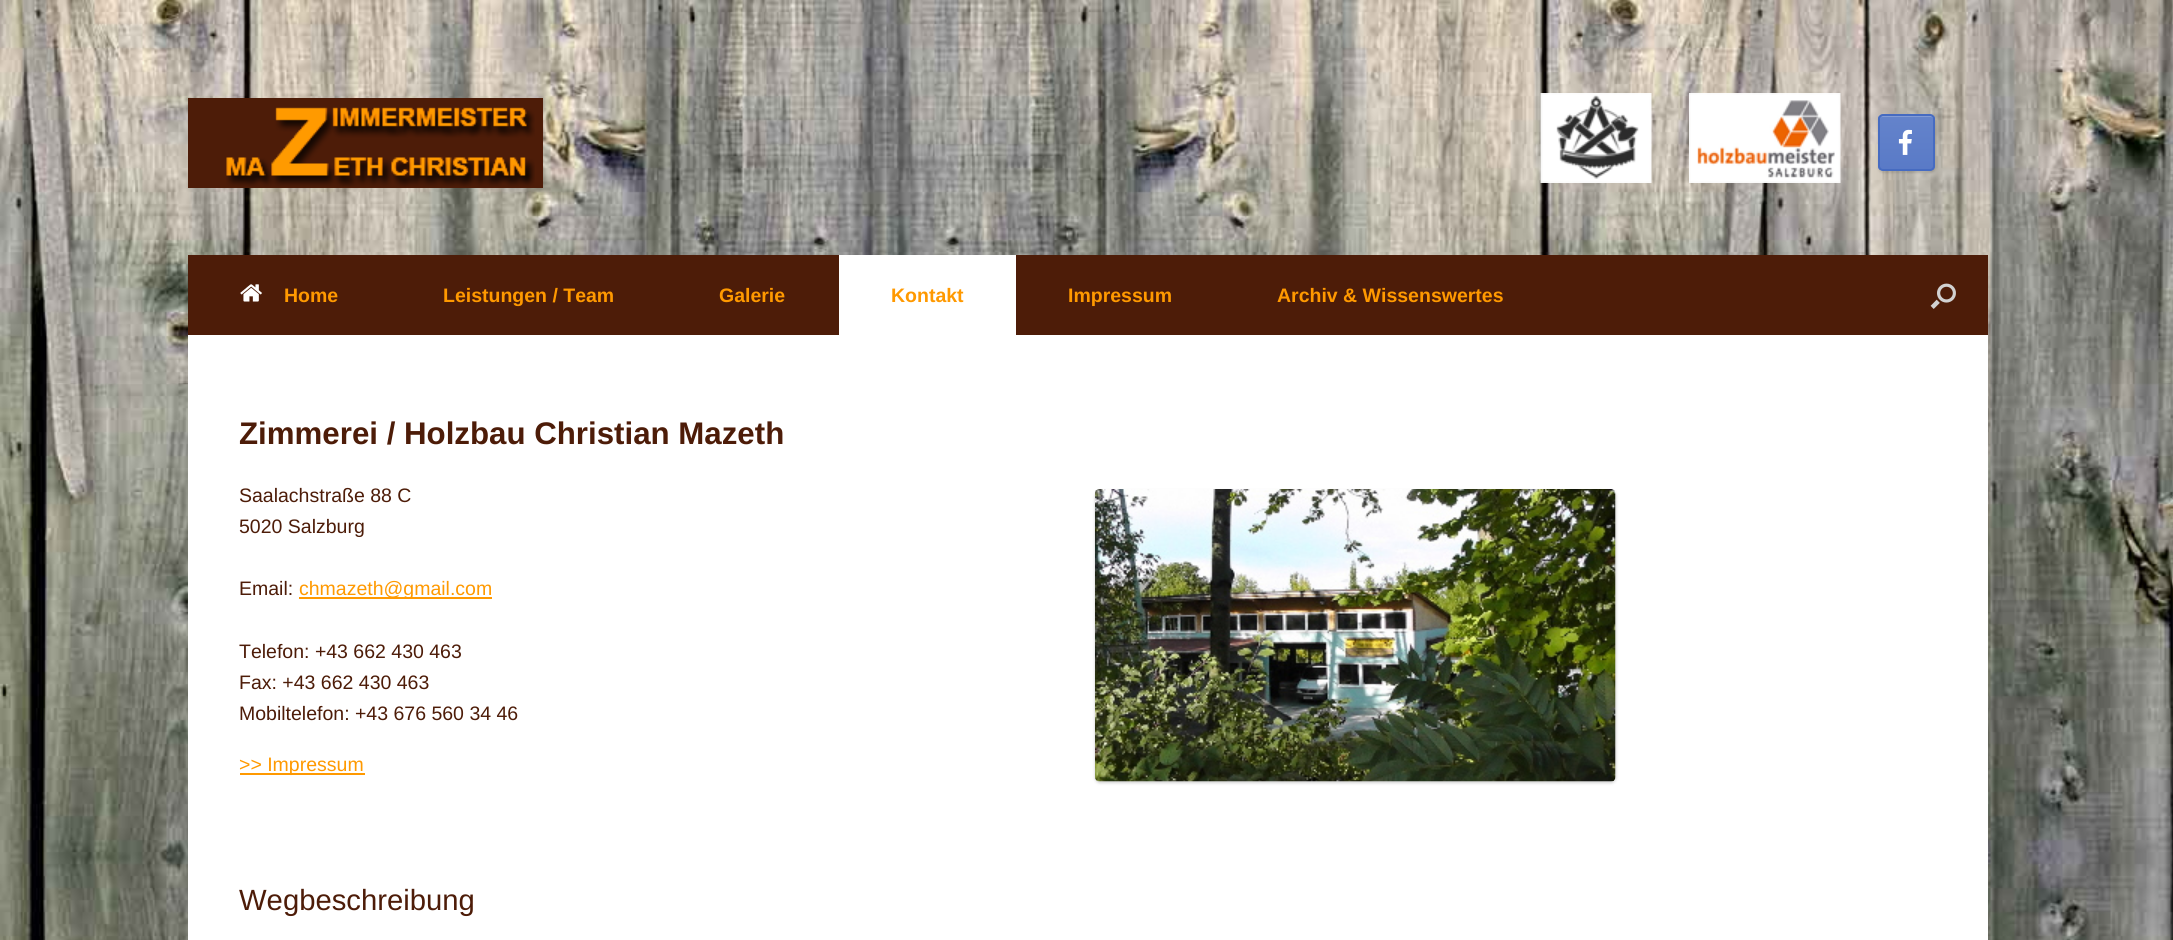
#include <cairo.h>
#include <math.h>
#include <stddef.h>


static void set_color(cairo_t *cr, unsigned color) {
    cairo_set_source_rgb(cr, (color >> 16) / 255.0, (color >> 8 & 255) / 255.0, (color & 255) / 255.0);
}

static void draw_text(cairo_t *cr, double x, double y, const char *s, const char *family, double size, int italic, int bold, unsigned color) {
    cairo_select_font_face(cr, family, italic ? CAIRO_FONT_SLANT_ITALIC : CAIRO_FONT_SLANT_NORMAL,
        bold ? CAIRO_FONT_WEIGHT_BOLD : CAIRO_FONT_WEIGHT_NORMAL);
    cairo_set_font_size(cr, size);
    set_color(cr, color);
    cairo_move_to(cr, x, y);
    cairo_show_text(cr, s);
}

static void fill_rect(cairo_t *cr, double x, double y, double w, double h, unsigned color) {
    set_color(cr, color);
    cairo_rectangle(cr, x, y, w, h);
    cairo_fill(cr);
}

static void rounded_rect(cairo_t *cr, double x, double y, double w, double h, double r) {
    cairo_new_sub_path(cr);
    cairo_arc(cr, x + w - r, y + h - r, r, 0, M_PI / 2);
    cairo_arc(cr, x + r, y + h - r, r, M_PI / 2, M_PI);
    cairo_arc(cr, x + r, y + r, r, M_PI, 1.5 * M_PI);
    cairo_arc(cr, x + w - r, y + r, r, 1.5 * M_PI, 2 * M_PI);
    cairo_close_path(cr);
}

static void draw_shadow(cairo_t *cr, double x, double y, double w, double h, double r, double blur, double alpha) {
    cairo_push_group_with_content(cr, CAIRO_CONTENT_ALPHA);
    cairo_set_operator(cr, CAIRO_OPERATOR_SOURCE);
    for (int i = 15; i >= -15 && fmin(w, h) + blur * i / 3 > 0; i -= 2) {
        double e = blur * i / 6;
        cairo_set_source_rgba(cr, 0, 0, 0, alpha * erfc((i - 1) / 8.5) / 2);
        rounded_rect(cr, x - e, y - e, w + 2 * e, h + 2 * e, fmax(0, fmin(r + e + blur * .6, fmin(w, h) / 2 + e)));
        cairo_fill(cr);
    }
    cairo_pattern_t *soft = cairo_pop_group(cr);
    cairo_mask(cr, soft);
    cairo_pattern_destroy(soft);
}

static void draw_image(cairo_t *cr, const char *path, double x, double y, double w, double h) {
    cairo_surface_t *image = cairo_image_surface_create_from_png(path);
    cairo_save(cr);
    cairo_set_source_surface(cr, image, x, y);
    cairo_rectangle(cr, x, y, w, h);
    cairo_fill(cr);
    cairo_restore(cr);
    cairo_surface_destroy(image);
}

int main(void) {
    cairo_surface_t *surface = cairo_image_surface_create(CAIRO_FORMAT_RGB24, 2173, 940);
    cairo_t *cr = cairo_create(surface);
    cairo_font_options_t *options = cairo_font_options_create();
    cairo_font_options_set_hint_metrics(options, CAIRO_HINT_METRICS_OFF);
    cairo_font_options_set_hint_style(options, CAIRO_HINT_STYLE_NONE);
    cairo_set_font_options(cr, options);
    cairo_set_miter_limit(cr, 4);
    cairo_pattern_t *gradient;
    set_color(cr, 0xFFFFFF);
    cairo_paint(cr);
    draw_image(cr, "assets/img1.png", 0, 0, 2173, 940);
    fill_rect(cr, 188, 98, 355, 90, 0x4D1C08);
    draw_image(cr, "assets/img2.png", 226, 107, 309, 80);
    draw_image(cr, "assets/img3.png", 1540, 93, 112, 90);
    draw_image(cr, "assets/img4.png", 1689, 93, 152, 90);
    set_color(cr, 0x000000);
    draw_shadow(cr, 1878, 116, 57, 57, 5, 1, 0.1);
    cairo_save(cr);
    rounded_rect(cr, 1878, 114, 57, 57, 5);
    cairo_clip(cr);
    gradient = cairo_pattern_create_linear(1880, 170, 1880, 116);
    cairo_pattern_add_color_stop_rgba(gradient, 0, 0.349, 0.478, 0.78, 1);
    cairo_pattern_add_color_stop_rgba(gradient, 1, 0.392, 0.514, 0.796, 1);
    cairo_set_source(cr, gradient);
    cairo_pattern_destroy(gradient);
    cairo_rectangle(cr, 1878, 116, 57, 54);
    cairo_fill(cr);
    cairo_restore(cr);
    set_color(cr, 0x839CD5);
    cairo_new_path(cr);
    cairo_move_to(cr, 1882, 117);
    cairo_line_to(cr, 1930, 117);
    cairo_curve_to(cr, 1932, 117, 1934, 118, 1934, 120);
    cairo_curve_to(cr, 1934, 114, 1927, 116, 1923, 116);
    cairo_line_to(cr, 1891, 116);
    cairo_curve_to(cr, 1887, 116, 1880, 114, 1880, 120);
    cairo_curve_to(cr, 1880, 118, 1881, 117, 1882, 117);
    cairo_close_path(cr);
    cairo_fill(cr);
    rounded_rect(cr, 1879, 115, 55, 55, 4);
    set_color(cr, 0x466BC1);
    cairo_stroke(cr);
    draw_image(cr, "assets/img5.png", 1898, 129, 14, 26);
    fill_rect(cr, 188, 255, 1800, 80, 0x4D1C08);
    draw_image(cr, "assets/img6.png", 240, 284, 22, 18);
    draw_text(cr, 284, 302, "Home", "Liberation Sans", 19.5, 0, 1, 0xFF9900);
    draw_text(cr, 443, 302, "Leistungen / Team", "Liberation Sans", 19.5, 0, 1, 0xFF9900);
    draw_text(cr, 719, 302, "Galerie", "Liberation Sans", 19.5, 0, 1, 0xFF9900);
    fill_rect(cr, 839, 255, 177, 80, 0xFFFFFF);
    draw_text(cr, 891, 302, "Kontakt", "Liberation Sans", 19.5, 0, 1, 0xFF9900);
    draw_text(cr, 1068, 302, "Impressum", "Liberation Sans", 19.5, 0, 1, 0xFF9900);
    draw_text(cr, 1277, 302, "Archiv & Wissenswertes", "Liberation Sans", 19.5, 0, 1, 0xFF9900);
    draw_image(cr, "assets/img7.png", 1930, 283, 26, 26);
    fill_rect(cr, 188, 335, 1800, 605, 0xFFFFFF);
    draw_text(cr, 239, 444, "Zimmerei / Holzbau Christian Mazeth", "Liberation Sans", 31.25, 0, 1, 0x4D1C08);
    draw_text(cr, 239, 502, "Saalachstraße 88 C", "Liberation Sans", 19.5, 0, 0, 0x4D1C08);
    draw_text(cr, 239, 533, "5020 Salzburg", "Liberation Sans", 19.5, 0, 0, 0x4D1C08);
    draw_text(cr, 239, 595, "Email:", "Liberation Sans", 19.5, 0, 0, 0x4D1C08);
    fill_rect(cr, 299, 597, 193, 2, 0xFF9900);
    draw_text(cr, 299, 595, "chmazeth@gmail.com", "Liberation Sans", 19.5, 0, 0, 0xFF9900);
    draw_text(cr, 239, 658, "Telefon: +43 662 430 463", "Liberation Sans", 19.5, 0, 0, 0x4D1C08);
    draw_text(cr, 239, 689, "Fax: +43 662 430 463", "Liberation Sans", 19.5, 0, 0, 0x4D1C08);
    draw_text(cr, 239, 720, "Mobiltelefon: +43 676 560 34 46", "Liberation Sans", 19.5, 0, 0, 0x4D1C08);
    fill_rect(cr, 240, 773, 125, 2, 0xFF9900);
    draw_text(cr, 239, 771, ">> Impressum", "Liberation Sans", 19.5, 0, 0, 0xFF9900);
    set_color(cr, 0x000000);
    draw_shadow(cr, 1095, 491, 521, 292, 5, 1.5, 0.18);
    draw_image(cr, "assets/img8.png", 1095, 489, 521, 293);
    draw_text(cr, 239, 910, "Wegbeschreibung", "Liberation Sans", 29.25, 0, 0, 0x4D1C08);
    cairo_surface_write_to_png(surface, "output.png");
    cairo_font_options_destroy(options);
    cairo_destroy(cr);
    cairo_surface_destroy(surface);
    return 0;
}
